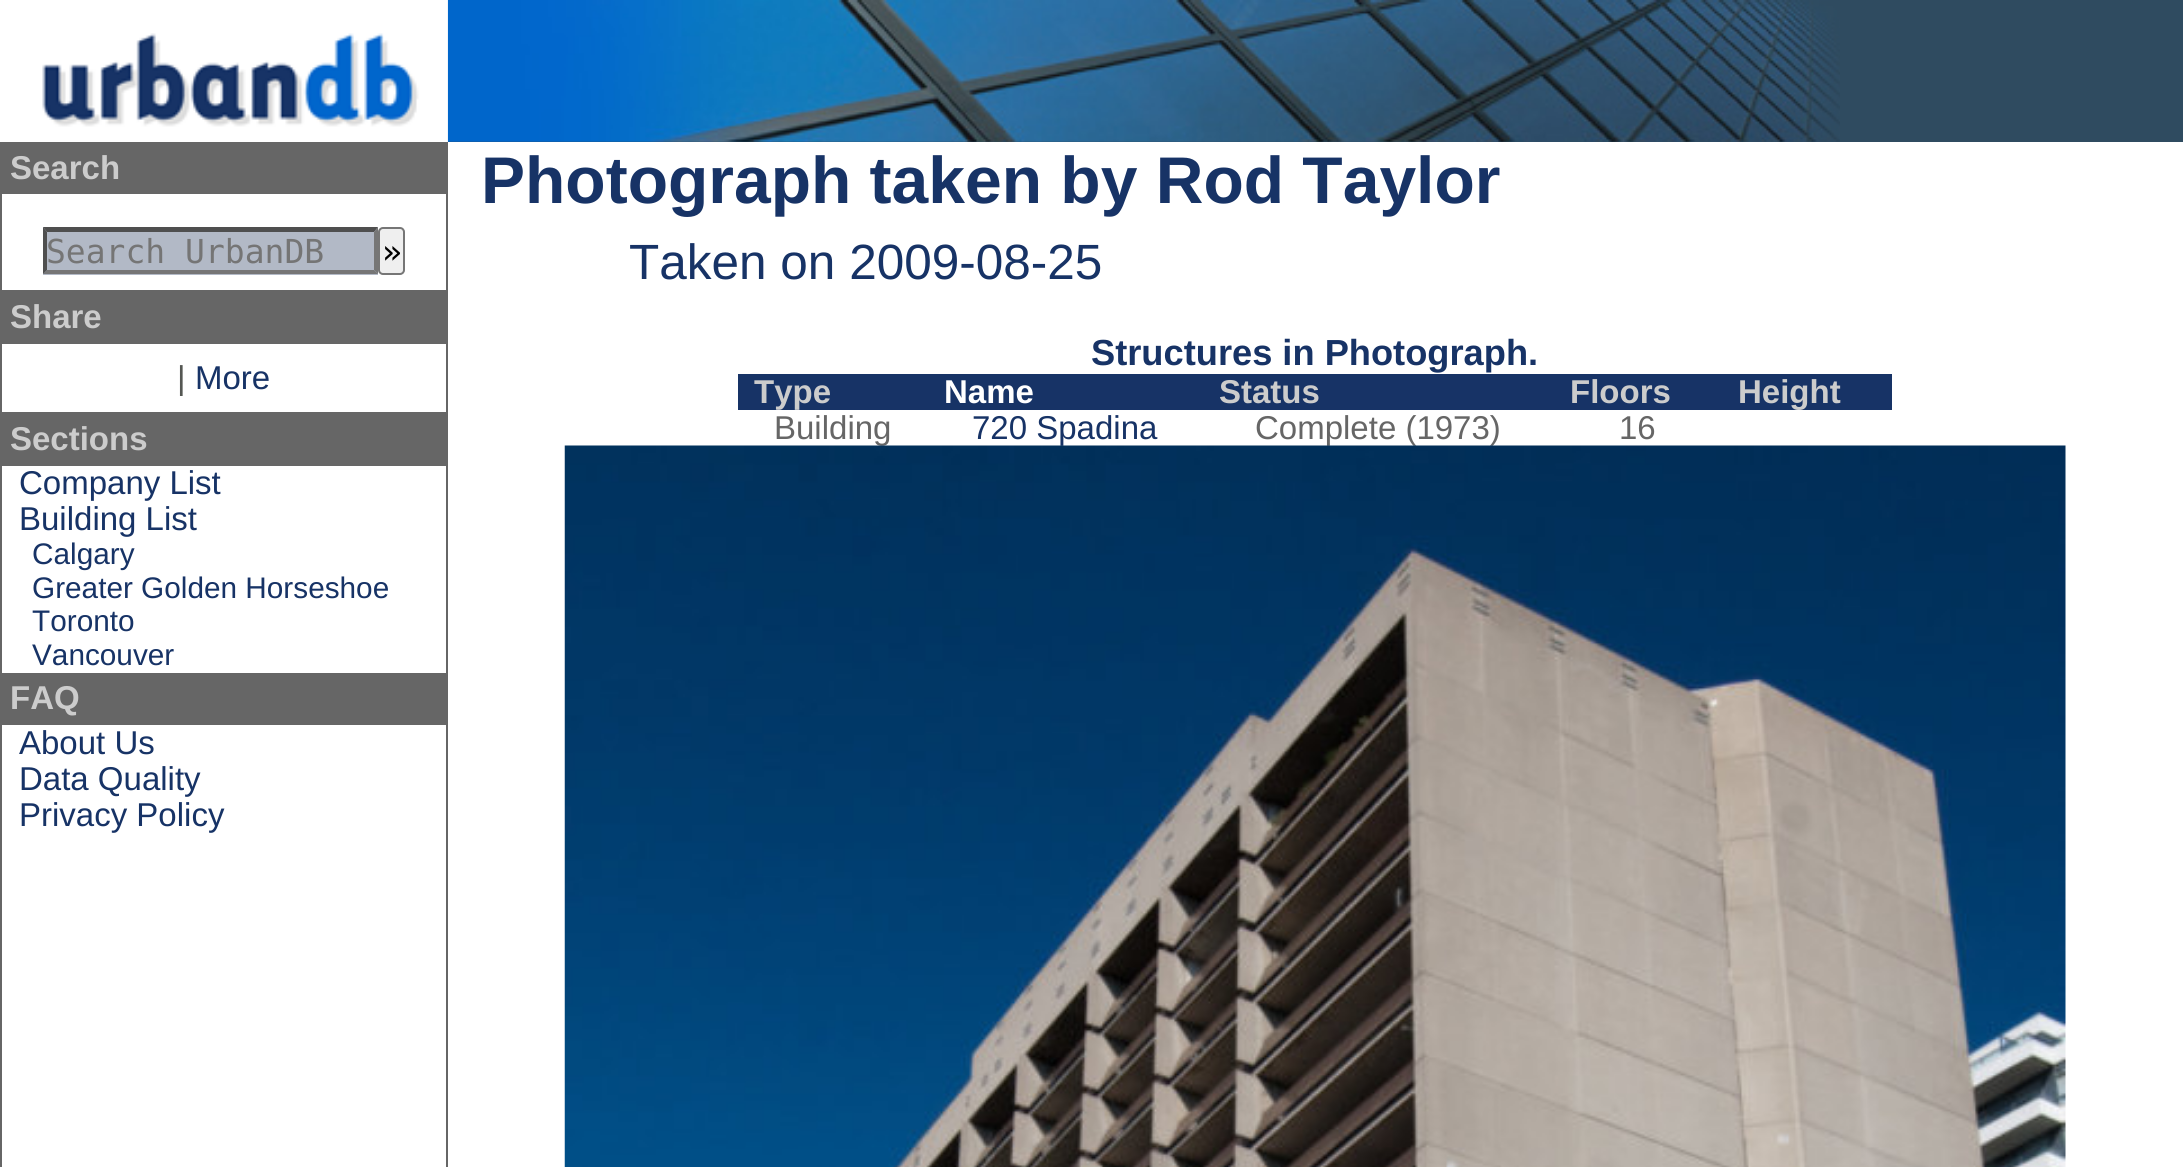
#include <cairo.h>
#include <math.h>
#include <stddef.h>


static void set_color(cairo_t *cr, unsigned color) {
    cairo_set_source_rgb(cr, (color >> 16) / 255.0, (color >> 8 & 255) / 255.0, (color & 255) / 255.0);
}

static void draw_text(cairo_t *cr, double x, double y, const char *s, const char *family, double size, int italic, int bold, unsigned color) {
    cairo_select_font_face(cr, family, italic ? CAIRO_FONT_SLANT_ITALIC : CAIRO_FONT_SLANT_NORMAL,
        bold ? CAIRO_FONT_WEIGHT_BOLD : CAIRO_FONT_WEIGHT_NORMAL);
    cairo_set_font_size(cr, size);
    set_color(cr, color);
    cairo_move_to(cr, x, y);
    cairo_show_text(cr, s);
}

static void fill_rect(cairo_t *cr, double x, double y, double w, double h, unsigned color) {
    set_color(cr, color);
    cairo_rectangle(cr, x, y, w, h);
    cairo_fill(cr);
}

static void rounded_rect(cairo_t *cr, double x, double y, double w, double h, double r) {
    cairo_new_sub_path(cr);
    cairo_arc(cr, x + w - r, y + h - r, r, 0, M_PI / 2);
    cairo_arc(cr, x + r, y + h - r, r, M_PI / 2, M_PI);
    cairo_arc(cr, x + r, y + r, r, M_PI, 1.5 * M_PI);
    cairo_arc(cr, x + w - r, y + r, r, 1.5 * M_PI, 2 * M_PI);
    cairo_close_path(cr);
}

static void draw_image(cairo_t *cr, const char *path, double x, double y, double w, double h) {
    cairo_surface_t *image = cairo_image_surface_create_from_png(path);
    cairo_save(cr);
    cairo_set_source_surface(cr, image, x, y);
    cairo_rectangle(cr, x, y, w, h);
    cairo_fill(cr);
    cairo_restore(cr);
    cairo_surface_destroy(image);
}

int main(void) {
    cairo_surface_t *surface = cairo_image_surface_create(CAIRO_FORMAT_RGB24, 2183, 1167);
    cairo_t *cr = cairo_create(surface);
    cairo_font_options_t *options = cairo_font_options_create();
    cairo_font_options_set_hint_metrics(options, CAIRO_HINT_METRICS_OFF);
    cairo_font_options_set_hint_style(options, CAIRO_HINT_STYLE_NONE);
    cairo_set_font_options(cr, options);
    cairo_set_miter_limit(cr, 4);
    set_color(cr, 0xFFFFFF);
    cairo_paint(cr);
    fill_rect(cr, 448, 0, 1735, 142, 0x2F4B60);
    draw_image(cr, "assets/img2.png", 447, 0, 1393, 142);
    draw_image(cr, "assets/img1.png", 42, 0, 406, 142);
    fill_rect(cr, 446, 142, 2, 1025, 0x666666);
    fill_rect(cr, 0, 142, 2, 1025, 0x666666);
    fill_rect(cr, 2, 142, 444, 52, 0x666666);
    draw_text(cr, 10, 179, "Search", "Liberation Sans", 33, 0, 1, 0xCCCCCC);
    fill_rect(cr, 43, 227, 335, 48, 0xB2B9C6);
    set_color(cr, 0x4F4F4F);
    cairo_new_path(cr);
    cairo_move_to(cr, 43, 227);
    cairo_line_to(cr, 378, 227);
    cairo_line_to(cr, 374, 232);
    cairo_line_to(cr, 47, 232);
    cairo_close_path(cr);
    cairo_fill(cr);
    set_color(cr, 0x767676);
    cairo_new_path(cr);
    cairo_move_to(cr, 378, 227);
    cairo_line_to(cr, 378, 274);
    cairo_line_to(cr, 374, 270);
    cairo_line_to(cr, 374, 232);
    cairo_close_path(cr);
    cairo_fill(cr);
    cairo_new_path(cr);
    cairo_move_to(cr, 378, 274);
    cairo_line_to(cr, 43, 274);
    cairo_line_to(cr, 47, 270);
    cairo_line_to(cr, 374, 270);
    cairo_close_path(cr);
    cairo_fill(cr);
    set_color(cr, 0x4F4F4F);
    cairo_new_path(cr);
    cairo_move_to(cr, 43, 274);
    cairo_line_to(cr, 43, 227);
    cairo_line_to(cr, 47, 232);
    cairo_line_to(cr, 47, 270);
    cairo_close_path(cr);
    cairo_fill(cr);
    draw_text(cr, 46, 263, "Search UrbanDB", "DejaVu Sans Mono", 33, 0, 0, 0x757575);
    set_color(cr, 0xEFEFEF);
    rounded_rect(cr, 379, 228, 25, 46, 4);
    cairo_fill_preserve(cr);
    set_color(cr, 0x767676);
    cairo_stroke(cr);
    draw_text(cr, 382, 263, "»", "DejaVu Sans Mono", 33, 0, 0, 0x000000);
    fill_rect(cr, 2, 290, 444, 54, 0x666666);
    draw_text(cr, 10, 328, "Share", "Liberation Sans", 33, 0, 1, 0xCCCCCC);
    draw_text(cr, 177, 389, "|", "Liberation Sans", 33, 0, 0, 0x555753);
    draw_text(cr, 195, 389, "More", "Liberation Sans", 33, 0, 0, 0x173366);
    fill_rect(cr, 2, 412, 444, 54, 0x666666);
    draw_text(cr, 10, 450, "Sections", "Liberation Sans", 33, 0, 1, 0xCCCCCC);
    draw_text(cr, 19, 494, "Company List", "Liberation Sans", 33, 0, 0, 0x173366);
    draw_text(cr, 19, 530, "Building List", "Liberation Sans", 33, 0, 0, 0x173366);
    draw_text(cr, 32, 564, "Calgary", "Liberation Sans", 29.75, 0, 0, 0x173366);
    draw_text(cr, 32, 598, "Greater Golden Horseshoe", "Liberation Sans", 29.75, 0, 0, 0x173366);
    draw_text(cr, 32, 631, "Toronto", "Liberation Sans", 29.75, 0, 0, 0x173366);
    draw_text(cr, 32, 665, "Vancouver", "Liberation Sans", 29.75, 0, 0, 0x173366);
    fill_rect(cr, 2, 673, 444, 52, 0x666666);
    draw_text(cr, 10, 709, "FAQ", "Liberation Sans", 33, 0, 1, 0xCCCCCC);
    draw_text(cr, 19, 754, "About Us", "Liberation Sans", 33, 0, 0, 0x173366);
    draw_text(cr, 19, 790, "Data Quality", "Liberation Sans", 33, 0, 0, 0x173366);
    draw_text(cr, 19, 826, "Privacy Policy", "Liberation Sans", 33, 0, 0, 0x173366);
    draw_text(cr, 481, 203, "Photograph taken by Rod Taylor", "Liberation Sans", 66, 0, 1, 0x173366);
    draw_text(cr, 629, 279, "Taken on 2009-08-25", "Liberation Sans", 49.5, 0, 0, 0x173366);
    draw_text(cr, 1091, 365, "Structures in Photograph.", "Liberation Sans", 36.25, 0, 1, 0x173366);
    fill_rect(cr, 738, 374, 1154, 36, 0x173366);
    draw_text(cr, 754, 403, "Type", "Liberation Sans", 33, 0, 1, 0xCCCCCC);
    draw_text(cr, 944, 403, "Name", "Liberation Sans", 33, 0, 1, 0xFFFFFF);
    draw_text(cr, 1219, 403, "Status", "Liberation Sans", 33, 0, 1, 0xCCCCCC);
    draw_text(cr, 1570, 403, "Floors", "Liberation Sans", 33, 0, 1, 0xCCCCCC);
    draw_text(cr, 1738, 403, "Height", "Liberation Sans", 33, 0, 1, 0xCCCCCC);
    draw_text(cr, 774, 439, "Building", "Liberation Sans", 33, 0, 0, 0x666666);
    draw_text(cr, 972, 439, "720 Spadina", "Liberation Sans", 33, 0, 0, 0x173366);
    draw_text(cr, 1255, 439, "Complete (1973)", "Liberation Sans", 33, 0, 0, 0x666666);
    draw_text(cr, 1619, 439, "16", "Liberation Sans", 33, 0, 0, 0x666666);
    draw_image(cr, "assets/img3.png", 564, 445, 1502, 722);
    cairo_surface_write_to_png(surface, "output.png");
    cairo_font_options_destroy(options);
    cairo_destroy(cr);
    cairo_surface_destroy(surface);
    return 0;
}
